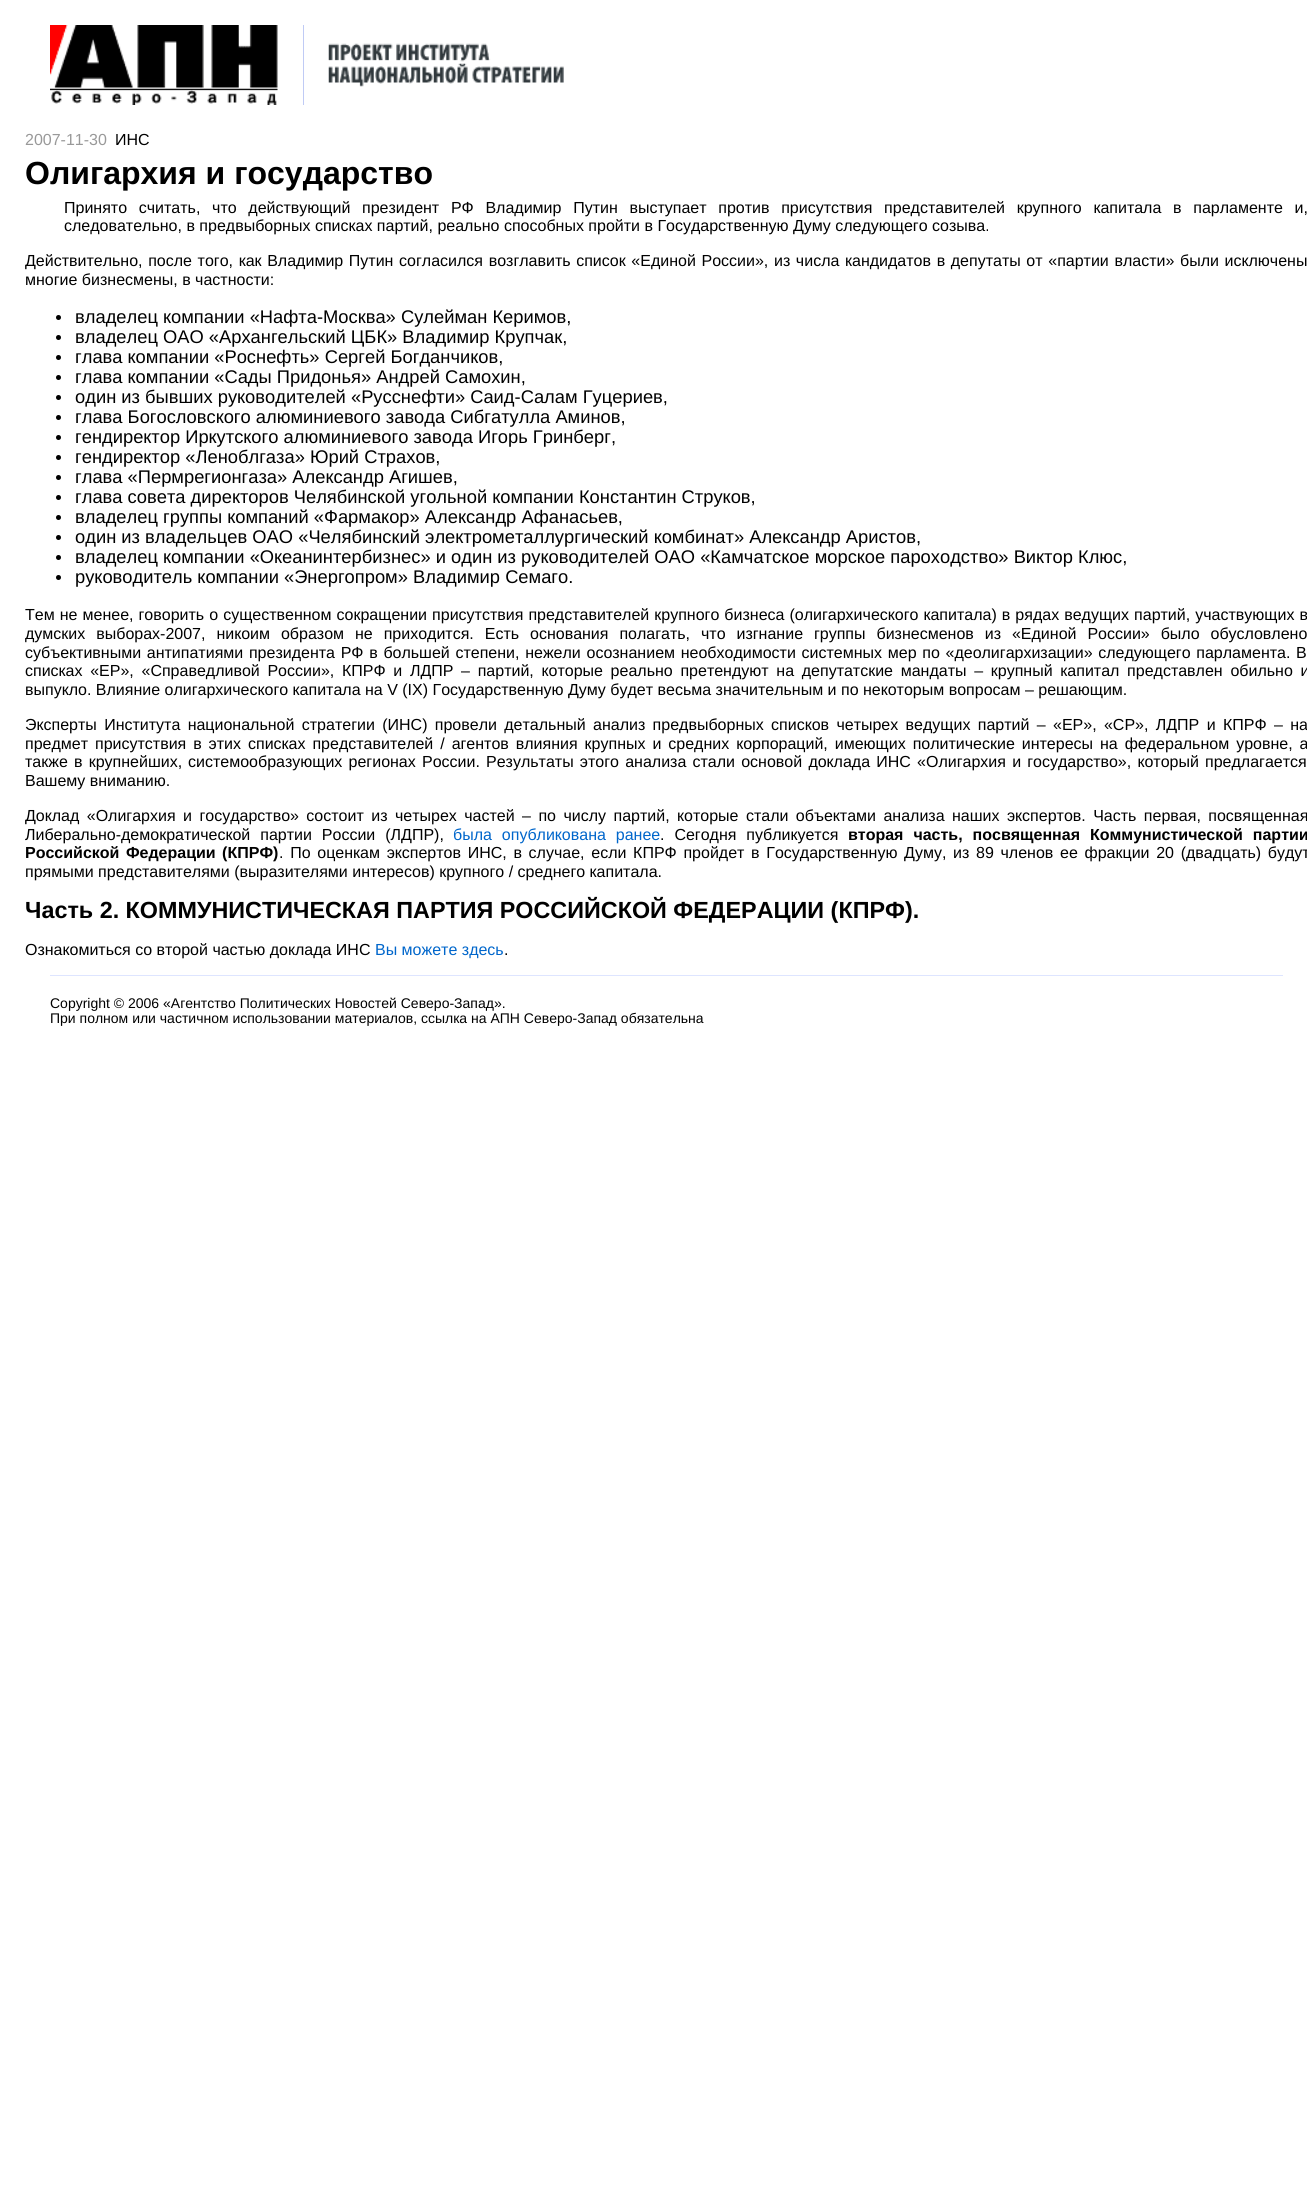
#include <cairo.h>
#include <math.h>
#include <stddef.h>


static void set_color(cairo_t *cr, unsigned color) {
    cairo_set_source_rgb(cr, (color >> 16) / 255.0, (color >> 8 & 255) / 255.0, (color & 255) / 255.0);
}

static void draw_text(cairo_t *cr, double x, double y, const char *s, const char *family, double size, int italic, int bold, unsigned color) {
    cairo_select_font_face(cr, family, italic ? CAIRO_FONT_SLANT_ITALIC : CAIRO_FONT_SLANT_NORMAL,
        bold ? CAIRO_FONT_WEIGHT_BOLD : CAIRO_FONT_WEIGHT_NORMAL);
    cairo_set_font_size(cr, size);
    set_color(cr, color);
    cairo_move_to(cr, x, y);
    cairo_show_text(cr, s);
}

static void draw_spaced(cairo_t *cr, double x, double y, const char *s, double letter, double word) {
    cairo_move_to(cr, x, y);
    while (*s) {
        char ch[5] = {0};
        int n = 0;
        do ch[n++] = *s++; while ((*s & 0xC0) == 0x80);
        cairo_show_text(cr, ch);
        cairo_rel_move_to(cr, letter + word * (*ch == ' '), 0);
    }
}

static void fill_rect(cairo_t *cr, double x, double y, double w, double h, unsigned color) {
    set_color(cr, color);
    cairo_rectangle(cr, x, y, w, h);
    cairo_fill(cr);
}

static void draw_image(cairo_t *cr, const char *path, double x, double y, double w, double h) {
    cairo_surface_t *image = cairo_image_surface_create_from_png(path);
    cairo_save(cr);
    cairo_set_source_surface(cr, image, x, y);
    cairo_rectangle(cr, x, y, w, h);
    cairo_fill(cr);
    cairo_restore(cr);
    cairo_surface_destroy(image);
}

int main(void) {
    cairo_surface_t *surface = cairo_image_surface_create(CAIRO_FORMAT_RGB24, 1307, 2202);
    cairo_t *cr = cairo_create(surface);
    cairo_font_options_t *options = cairo_font_options_create();
    cairo_font_options_set_hint_metrics(options, CAIRO_HINT_METRICS_OFF);
    cairo_font_options_set_hint_style(options, CAIRO_HINT_STYLE_NONE);
    cairo_set_font_options(cr, options);
    cairo_set_miter_limit(cr, 4);
    set_color(cr, 0xFFFFFF);
    cairo_paint(cr);
    fill_rect(cr, 303, 25, 1, 80, 0xC0CBF5);
    draw_image(cr, "assets/img1.png", 50, 25, 228, 80);
    draw_image(cr, "assets/img2.png", 328, 43, 236, 44);
    draw_text(cr, 25, 145, "2007-11-30", "Liberation Sans", 16, 0, 0, 0x999999);
    draw_text(cr, 115, 145, "ИНС", "Liberation Sans", 16, 0, 0, 0x000000);
    draw_text(cr, 25, 184, "Олигархия и государство", "Liberation Sans", 32, 0, 1, 0x000000);
    cairo_select_font_face(cr, "Liberation Sans", CAIRO_FONT_SLANT_NORMAL, CAIRO_FONT_WEIGHT_NORMAL);
    cairo_set_font_size(cr, 16);
    draw_spaced(cr, 64, 213, "Принято считать, что действующий президент РФ Владимир Путин выступает против присутствия представителей крупного капитала в парламенте и,", 0, 7.25);
    draw_text(cr, 64, 231, "следовательно, в предвыборных списках партий, реально способных пройти в Государственную Думу следующего созыва.", "Liberation Sans", 16, 0, 0, 0x000000);
    draw_spaced(cr, 25, 266, "Действительно, после того, как Владимир Путин согласился возглавить список «Единой России», из числа кандидатов в депутаты от «партии власти» были исключены", 0, 1.2);
    draw_text(cr, 25, 285, "многие бизнесмены, в частности:", "Liberation Sans", 16, 0, 0, 0x000000);
    cairo_new_path(cr);
    cairo_arc(cr, 58.5, 317.5, 2.5, 0, 2 * M_PI);
    cairo_fill(cr);
    draw_text(cr, 75, 323, "владелец компании «Нафта-Москва» Сулейман Керимов,", "Liberation Sans", 18.33, 0, 0, 0x000000);
    cairo_new_path(cr);
    cairo_arc(cr, 58.5, 337.5, 2.5, 0, 2 * M_PI);
    cairo_fill(cr);
    draw_text(cr, 75, 343, "владелец ОАО «Архангельский ЦБК» Владимир Крупчак,", "Liberation Sans", 18.33, 0, 0, 0x000000);
    cairo_new_path(cr);
    cairo_arc(cr, 58.5, 357.5, 2.5, 0, 2 * M_PI);
    cairo_fill(cr);
    draw_text(cr, 75, 363, "глава компании «Роснефть» Сергей Богданчиков,", "Liberation Sans", 18.33, 0, 0, 0x000000);
    cairo_new_path(cr);
    cairo_arc(cr, 58.5, 377.5, 2.5, 0, 2 * M_PI);
    cairo_fill(cr);
    draw_text(cr, 75, 383, "глава компании «Сады Придонья» Андрей Самохин,", "Liberation Sans", 18.33, 0, 0, 0x000000);
    cairo_new_path(cr);
    cairo_arc(cr, 58.5, 397.5, 2.5, 0, 2 * M_PI);
    cairo_fill(cr);
    draw_text(cr, 75, 403, "один из бывших руководителей «Русснефти» Саид-Салам Гуцериев,", "Liberation Sans", 18.33, 0, 0, 0x000000);
    cairo_new_path(cr);
    cairo_arc(cr, 58.5, 417.5, 2.5, 0, 2 * M_PI);
    cairo_fill(cr);
    draw_text(cr, 75, 423, "глава Богословского алюминиевого завода Сибгатулла Аминов,", "Liberation Sans", 18.33, 0, 0, 0x000000);
    cairo_new_path(cr);
    cairo_arc(cr, 58.5, 437.5, 2.5, 0, 2 * M_PI);
    cairo_fill(cr);
    draw_text(cr, 75, 443, "гендиректор Иркутского алюминиевого завода Игорь Гринберг,", "Liberation Sans", 18.33, 0, 0, 0x000000);
    cairo_new_path(cr);
    cairo_arc(cr, 58.5, 457.5, 2.5, 0, 2 * M_PI);
    cairo_fill(cr);
    draw_text(cr, 75, 463, "гендиректор «Леноблгаза» Юрий Страхов,", "Liberation Sans", 18.33, 0, 0, 0x000000);
    cairo_new_path(cr);
    cairo_arc(cr, 58.5, 477.5, 2.5, 0, 2 * M_PI);
    cairo_fill(cr);
    draw_text(cr, 75, 483, "глава «Пермрегионгаза» Александр Агишев,", "Liberation Sans", 18.33, 0, 0, 0x000000);
    cairo_new_path(cr);
    cairo_arc(cr, 58.5, 497.5, 2.5, 0, 2 * M_PI);
    cairo_fill(cr);
    draw_text(cr, 75, 503, "глава совета директоров Челябинской угольной компании Константин Струков,", "Liberation Sans", 18.33, 0, 0, 0x000000);
    cairo_new_path(cr);
    cairo_arc(cr, 58.5, 517.5, 2.5, 0, 2 * M_PI);
    cairo_fill(cr);
    draw_text(cr, 75, 523, "владелец группы компаний «Фармакор» Александр Афанасьев,", "Liberation Sans", 18.33, 0, 0, 0x000000);
    cairo_new_path(cr);
    cairo_arc(cr, 58.5, 537.5, 2.5, 0, 2 * M_PI);
    cairo_fill(cr);
    draw_text(cr, 75, 543, "один из владельцев ОАО «Челябинский электрометаллургический комбинат» Александр Аристов,", "Liberation Sans", 18.33, 0, 0, 0x000000);
    cairo_new_path(cr);
    cairo_arc(cr, 58.5, 557.5, 2.5, 0, 2 * M_PI);
    cairo_fill(cr);
    draw_text(cr, 75, 563, "владелец компании «Океанинтербизнес» и один из руководителей ОАО «Камчатское морское пароходство» Виктор Клюс,", "Liberation Sans", 18.33, 0, 0, 0x000000);
    cairo_new_path(cr);
    cairo_arc(cr, 58.5, 577.5, 2.5, 0, 2 * M_PI);
    cairo_fill(cr);
    draw_text(cr, 75, 583, "руководитель компании «Энергопром» Владимир Семаго.", "Liberation Sans", 18.33, 0, 0, 0x000000);
    cairo_set_font_size(cr, 16);
    draw_spaced(cr, 25, 620, "Тем не менее, говорить о существенном сокращении присутствия представителей крупного бизнеса (олигархического капитала) в рядах ведущих партий, участвующих в", 0, 0.6);
    draw_spaced(cr, 25, 639, "думских выборах-2007, никоим образом не приходится. Есть основания полагать, что изгнание группы бизнесменов из «Единой России» было обусловлено", 0, 6.5);
    draw_spaced(cr, 25, 658, "субъективными антипатиями президента РФ в большей степени, нежели осознанием необходимости системных мер по «деолигархизации» следующего парламента. В", 0, 1.25);
    draw_spaced(cr, 25, 676, "списках «ЕР», «Справедливой России», КПРФ и ЛДПР – партий, которые реально претендуют на депутатские мандаты – крупный капитал представлен обильно и", 0, 3.25);
    draw_text(cr, 25, 695, "выпукло. Влияние олигархического капитала на V (IX) Государственную Думу будет весьма значительным и по некоторым вопросам – решающим.", "Liberation Sans", 16, 0, 0, 0x000000);
    draw_spaced(cr, 25, 730, "Эксперты Института национальной стратегии (ИНС) провели детальный анализ предвыборных списков четырех ведущих партий – «ЕР», «СР», ЛДПР и КПРФ – на", 0, 2.9);
    draw_spaced(cr, 25, 749, "предмет присутствия в этих списках представителей / агентов влияния крупных и средних корпораций, имеющих политические интересы на федеральном уровне, а", 0, 2.5);
    draw_spaced(cr, 25, 767, "также в крупнейших,", 0, 1.75);
    draw_spaced(cr, 188, 767, "системообразующих регионах России. Результаты этого анализа стали основой доклада ИНС «Олигархия и государство», который предлагается", 0, 1.75);
    draw_text(cr, 25, 786, "Вашему вниманию.", "Liberation Sans", 16, 0, 0, 0x000000);
    draw_spaced(cr, 25, 821, "Доклад «Олигархия и государство» состоит из четырех частей – по числу партий, которые стали объектами анализа наших экспертов. Часть первая, посвященная", 0, 3);
    draw_spaced(cr, 25, 840, "Либерально-демократической партии России (ЛДПР),", 0, 5.5);
    set_color(cr, 0x0066CB);
    draw_spaced(cr, 453, 840, "была опубликована ранее", 0, 5.5);
    set_color(cr, 0x000000);
    draw_spaced(cr, 660, 840, ". Сегодня публикуется", 0, 5.5);
    cairo_select_font_face(cr, "Liberation Sans", CAIRO_FONT_SLANT_NORMAL, CAIRO_FONT_WEIGHT_BOLD);
    draw_spaced(cr, 848, 840, "вторая часть, посвященная Коммунистической партии", 0, 5.5);
    draw_spaced(cr, 25, 858, "Российской Федерации (КПРФ)", 0, 2);
    cairo_select_font_face(cr, "Liberation Sans", CAIRO_FONT_SLANT_NORMAL, CAIRO_FONT_WEIGHT_NORMAL);
    draw_spaced(cr, 279, 858, ". По оценкам экспертов ИНС, в случае, если КПРФ пройдет в Государственную Думу, из 89 членов ее фракции 20 (двадцать) будут", 0, 2.25);
    draw_text(cr, 25, 877, "прямыми представителями (выразителями интересов) крупного / среднего капитала.", "Liberation Sans", 16, 0, 0, 0x000000);
    draw_text(cr, 25, 918, "Часть 2. КОММУНИСТИЧЕСКАЯ ПАРТИЯ РОССИЙСКОЙ ФЕДЕРАЦИИ (КПРФ).", "Liberation Sans", 23.35, 0, 1, 0x000000);
    draw_text(cr, 25, 955, "Ознакомиться со второй частью доклада ИНС", "Liberation Sans", 16, 0, 0, 0x000000);
    draw_text(cr, 375, 955, "Вы можете здесь", "Liberation Sans", 16, 0, 0, 0x0066CB);
    draw_text(cr, 504, 955, ".", "Liberation Sans", 16, 0, 0, 0x000000);
    fill_rect(cr, 50, 975, 1233, 1, 0xDEE5FF);
    draw_text(cr, 50, 1008, "Copyright © 2006 «Агентство Политических Новостей Северо-Запад».", "Liberation Sans", 14, 0, 0, 0x000000);
    draw_text(cr, 50, 1023, "При полном или частичном использовании материалов, ссылка на АПН Северо-Запад обязательна", "Liberation Sans", 14, 0, 0, 0x000000);
    cairo_surface_write_to_png(surface, "output.png");
    cairo_font_options_destroy(options);
    cairo_destroy(cr);
    cairo_surface_destroy(surface);
    return 0;
}
